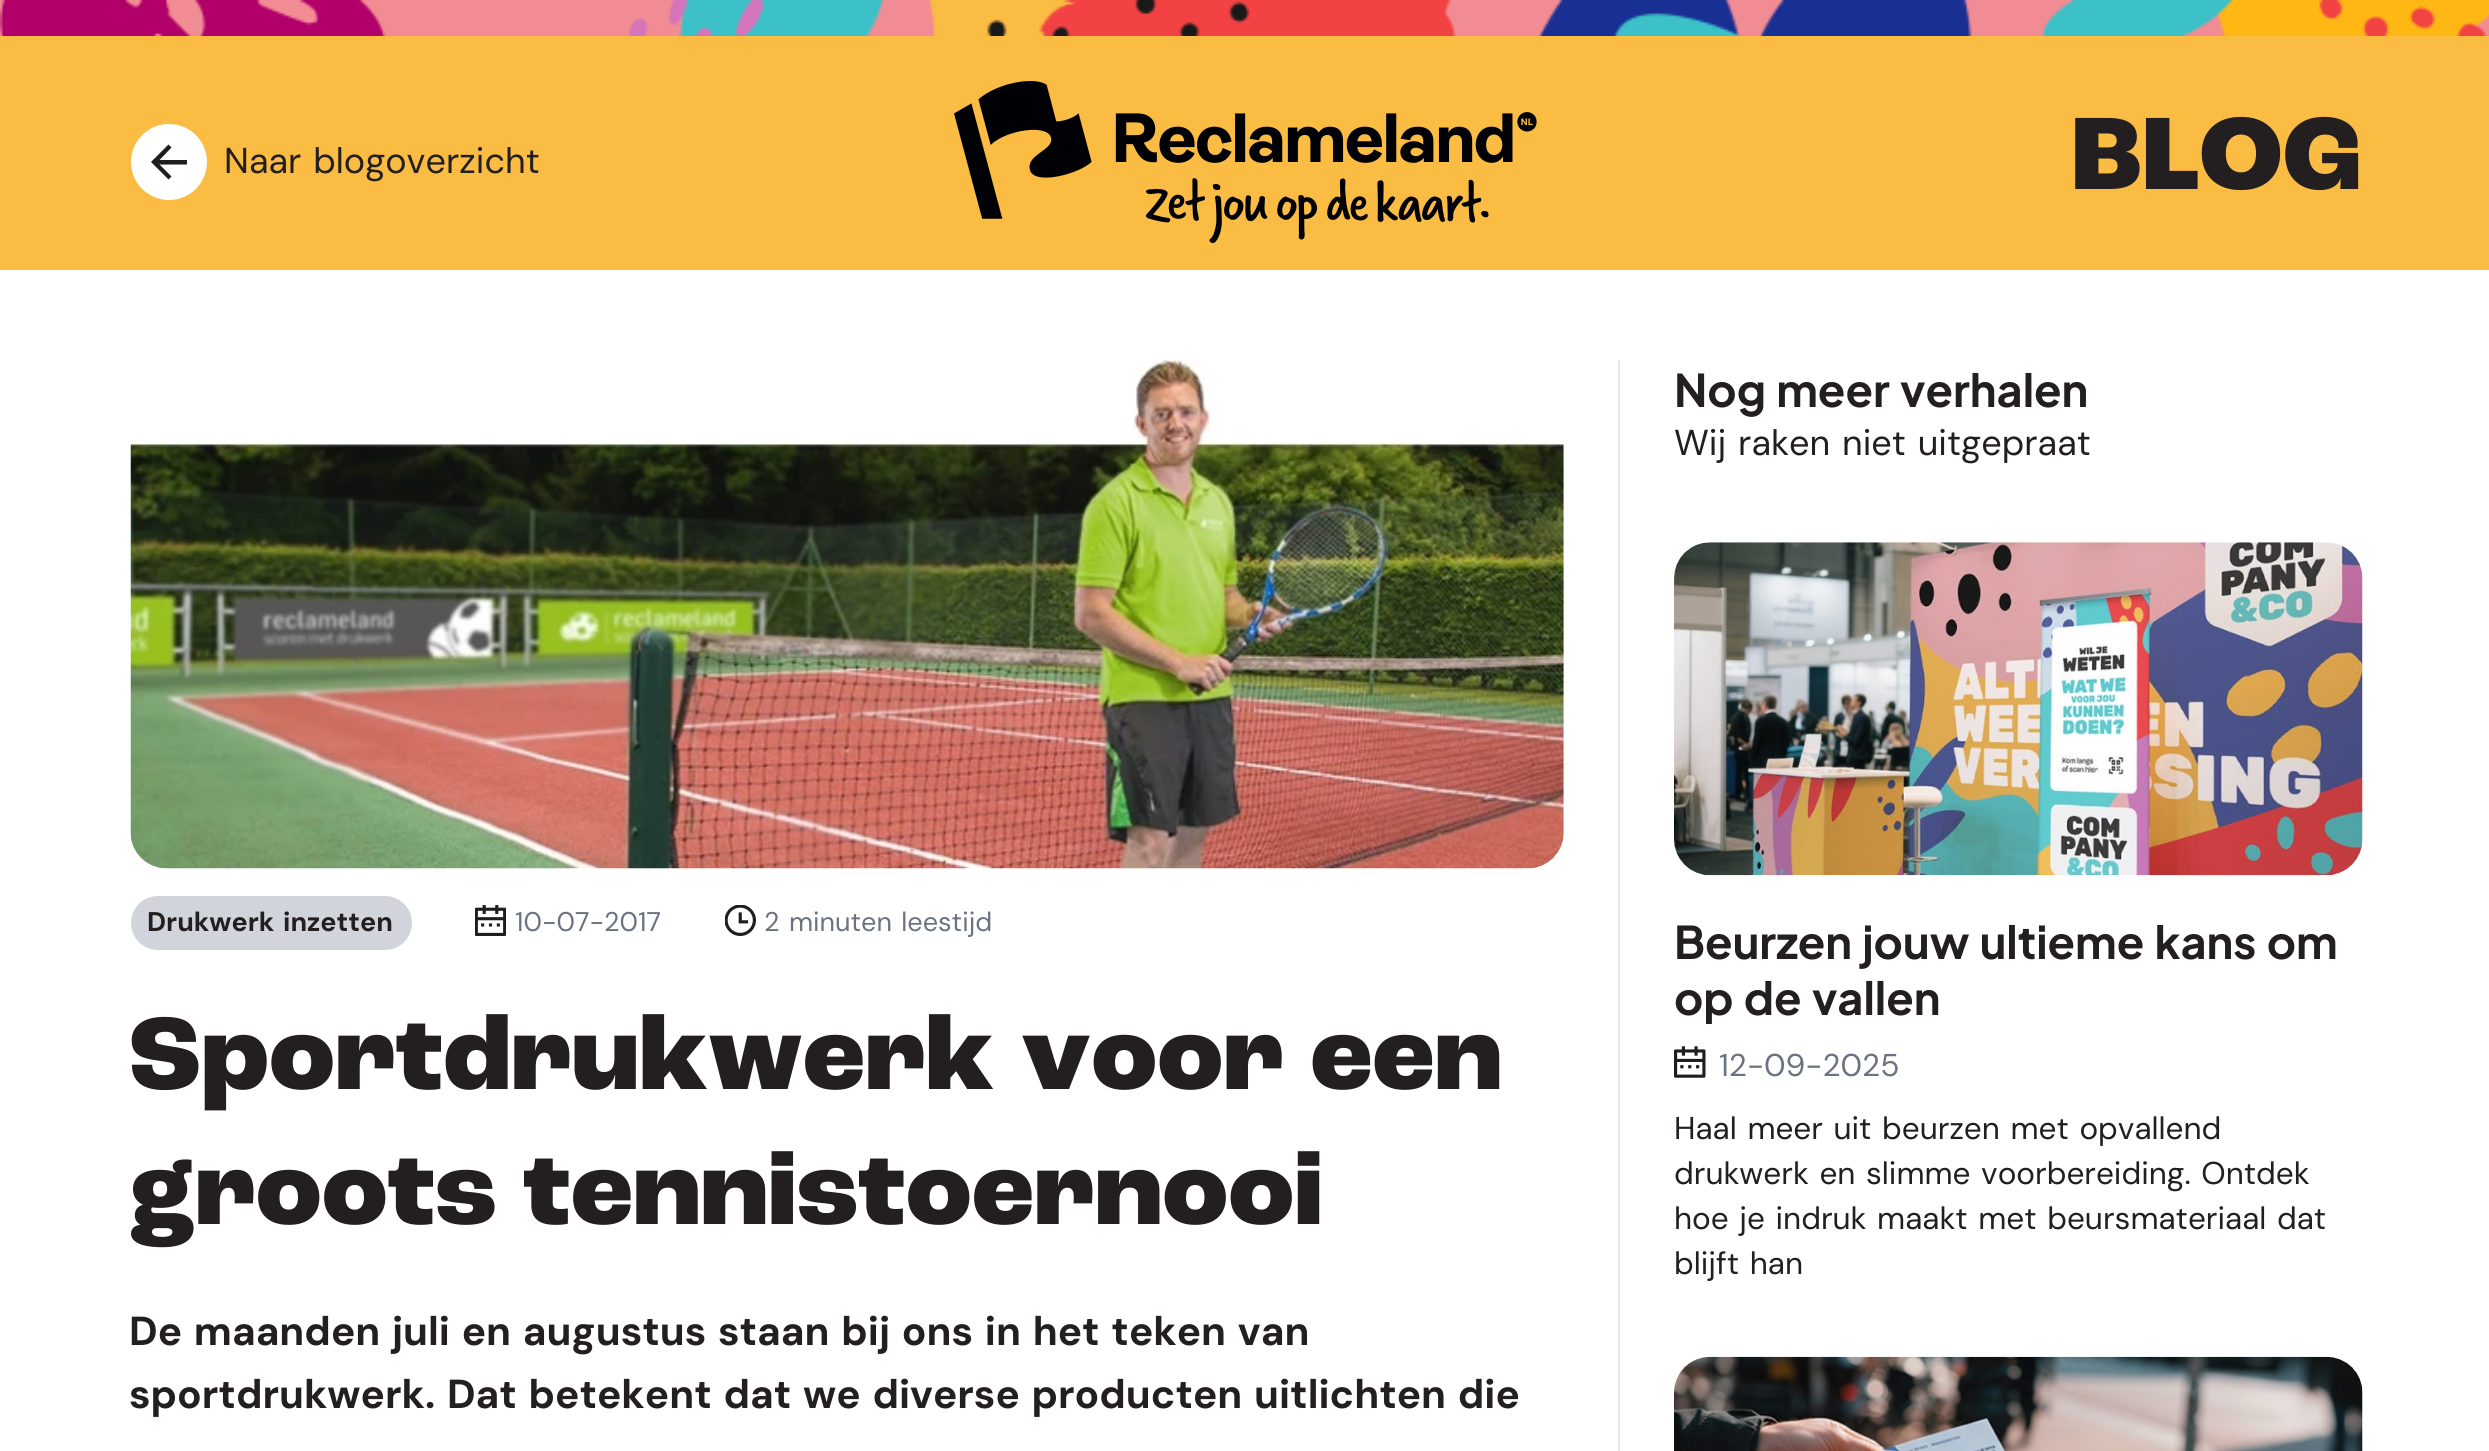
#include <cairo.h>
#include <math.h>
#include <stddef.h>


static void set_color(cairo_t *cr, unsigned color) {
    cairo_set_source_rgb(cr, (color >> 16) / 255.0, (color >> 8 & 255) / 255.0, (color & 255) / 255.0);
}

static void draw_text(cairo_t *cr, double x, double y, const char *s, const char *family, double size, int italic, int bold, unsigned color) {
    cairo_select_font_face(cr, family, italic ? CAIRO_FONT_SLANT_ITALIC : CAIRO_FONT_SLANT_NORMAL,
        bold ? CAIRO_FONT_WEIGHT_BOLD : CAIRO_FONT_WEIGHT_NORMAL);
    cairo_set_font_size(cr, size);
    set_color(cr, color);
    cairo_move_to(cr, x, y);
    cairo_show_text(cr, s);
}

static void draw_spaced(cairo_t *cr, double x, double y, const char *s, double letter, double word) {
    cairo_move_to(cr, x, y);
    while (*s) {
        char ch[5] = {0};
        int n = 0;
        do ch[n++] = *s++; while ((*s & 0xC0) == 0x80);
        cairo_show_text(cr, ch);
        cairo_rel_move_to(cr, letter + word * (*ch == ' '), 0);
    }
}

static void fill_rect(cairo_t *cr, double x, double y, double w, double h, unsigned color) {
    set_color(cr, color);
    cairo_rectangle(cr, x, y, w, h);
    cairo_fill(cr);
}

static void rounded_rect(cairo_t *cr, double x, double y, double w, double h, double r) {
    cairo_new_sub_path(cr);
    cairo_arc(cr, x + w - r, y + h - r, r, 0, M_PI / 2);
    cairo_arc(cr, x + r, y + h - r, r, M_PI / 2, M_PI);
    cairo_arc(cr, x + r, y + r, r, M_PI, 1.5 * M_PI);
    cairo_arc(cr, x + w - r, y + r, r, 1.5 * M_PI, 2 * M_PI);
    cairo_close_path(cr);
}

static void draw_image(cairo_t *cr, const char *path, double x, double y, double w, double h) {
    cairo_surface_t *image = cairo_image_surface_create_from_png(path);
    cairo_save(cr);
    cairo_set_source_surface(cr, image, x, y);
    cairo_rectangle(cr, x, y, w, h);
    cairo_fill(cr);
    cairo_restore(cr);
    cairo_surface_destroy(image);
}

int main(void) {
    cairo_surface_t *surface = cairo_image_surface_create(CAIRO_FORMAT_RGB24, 2489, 1451);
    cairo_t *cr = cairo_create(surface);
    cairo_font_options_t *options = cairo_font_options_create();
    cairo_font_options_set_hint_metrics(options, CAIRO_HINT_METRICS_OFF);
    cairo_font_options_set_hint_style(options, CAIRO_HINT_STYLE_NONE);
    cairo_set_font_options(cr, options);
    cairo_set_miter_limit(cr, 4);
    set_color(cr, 0xFFFFFF);
    cairo_paint(cr);
    draw_image(cr, "assets/img1.png", 0, 0, 2489, 36);
    fill_rect(cr, 0, 36, 2489, 234, 0xFABC43);
    set_color(cr, 0xFFFFFF);
    cairo_arc(cr, 169, 162, 37, 0, 2 * M_PI);
    cairo_fill_preserve(cr);
    cairo_stroke(cr);
    set_color(cr, 0x1E1E1E);
    cairo_new_path(cr);
    cairo_move_to(cr, 159.5, 160);
    cairo_line_to(cr, 187, 160);
    cairo_line_to(cr, 187, 164.5);
    cairo_line_to(cr, 159.5, 164.5);
    cairo_line_to(cr, 171.5, 176.5);
    cairo_line_to(cr, 168.5, 179.5);
    cairo_line_to(cr, 151, 162);
    cairo_line_to(cr, 168.5, 144.5);
    cairo_line_to(cr, 171.5, 147.5);
    cairo_close_path(cr);
    cairo_fill(cr);
    cairo_select_font_face(cr, "DM Sans", CAIRO_FONT_SLANT_NORMAL, CAIRO_FONT_WEIGHT_NORMAL);
    cairo_set_font_size(cr, 36);
    set_color(cr, 0x231F20);
    draw_spaced(cr, 224, 173, "Naar blogoverzicht", 0, 2.25);
    draw_image(cr, "assets/img2.png", 954, 81, 583, 162);
    draw_text(cr, 2071, 189, "BLOG", "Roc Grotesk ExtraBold", 108, 0, 0, 0x231F20);
    draw_image(cr, "assets/img3.png", 130, 360, 1434, 509);
    set_color(cr, 0xD1D5DB);
    rounded_rect(cr, 131, 896, 281, 54, 27);
    cairo_fill(cr);
    cairo_select_font_face(cr, "DM Sans", CAIRO_FONT_SLANT_NORMAL, CAIRO_FONT_WEIGHT_BOLD);
    cairo_set_font_size(cr, 27);
    set_color(cr, 0x231F20);
    draw_spaced(cr, 147, 931, "Drukwerk inzetten", 0, 2.25);
    draw_image(cr, "assets/img4.png", 475, 905, 31, 31);
    draw_text(cr, 515, 931, "10-07-2017", "DM Sans", 27, 0, 0, 0x6B7280);
    draw_image(cr, "assets/img5.png", 725, 905, 31, 31);
    draw_spaced(cr, 764, 931, "2 minuten leestijd", 0, 2.25);
    cairo_select_font_face(cr, "Roc Grotesk ExtraBold", CAIRO_FONT_SLANT_NORMAL, CAIRO_FONT_WEIGHT_NORMAL);
    cairo_set_font_size(cr, 108);
    set_color(cr, 0x231F20);
    draw_spaced(cr, 129, 1089, "Sportdrukwerk voor een", 0, 2.25);
    draw_spaced(cr, 129, 1224, "groots tennistoernooi", 0, 2.25);
    cairo_select_font_face(cr, "DM Sans", CAIRO_FONT_SLANT_NORMAL, CAIRO_FONT_WEIGHT_BOLD);
    cairo_set_font_size(cr, 40.5);
    draw_spaced(cr, 129, 1345, "De maanden juli en augustus staan bij ons in het teken van", 0, 2.25);
    draw_spaced(cr, 129, 1408, "sportdrukwerk. Dat betekent dat we diverse producten uitlichten die", 0, 2.25);
    fill_rect(cr, 1618, 360, 2, 1091, 0xE5E7EB);
    cairo_select_font_face(cr, "Plus Jakarta Sans", CAIRO_FONT_SLANT_NORMAL, CAIRO_FONT_WEIGHT_BOLD);
    cairo_set_font_size(cr, 45);
    set_color(cr, 0x231F20);
    draw_spaced(cr, 1674, 407, "Nog meer verhalen", 0, 2.25);
    cairo_select_font_face(cr, "DM Sans", CAIRO_FONT_SLANT_NORMAL, CAIRO_FONT_WEIGHT_NORMAL);
    cairo_set_font_size(cr, 36);
    draw_spaced(cr, 1674, 455, "Wij raken niet uitgepraat", 0, 2.25);
    draw_image(cr, "assets/img6.png", 1674, 542, 689, 334);
    cairo_select_font_face(cr, "Plus Jakarta Sans", CAIRO_FONT_SLANT_NORMAL, CAIRO_FONT_WEIGHT_BOLD);
    cairo_set_font_size(cr, 45);
    draw_spaced(cr, 1674, 959, "Beurzen jouw ultieme kans om", 0, 2.25);
    draw_spaced(cr, 1674, 1015, "op de vallen", 0, 2.25);
    draw_image(cr, "assets/img7.png", 1674, 1046, 32, 32);
    draw_text(cr, 1719, 1076, "12-09-2025", "DM Sans", 31.5, 0, 0, 0x6B7280);
    set_color(cr, 0x231F20);
    draw_spaced(cr, 1674, 1139, "Haal meer uit beurzen met opvallend", 0, 2.25);
    draw_spaced(cr, 1674, 1184, "drukwerk en slimme voorbereiding. Ontdek", 0, 2.25);
    draw_spaced(cr, 1674, 1229, "hoe je indruk maakt met beursmateriaal dat", 0, 2.25);
    draw_spaced(cr, 1674, 1274, "blijft han", 0, 2.25);
    draw_image(cr, "assets/img8.png", 1674, 1356, 689, 95);
    cairo_surface_write_to_png(surface, "output.png");
    cairo_font_options_destroy(options);
    cairo_destroy(cr);
    cairo_surface_destroy(surface);
    return 0;
}
